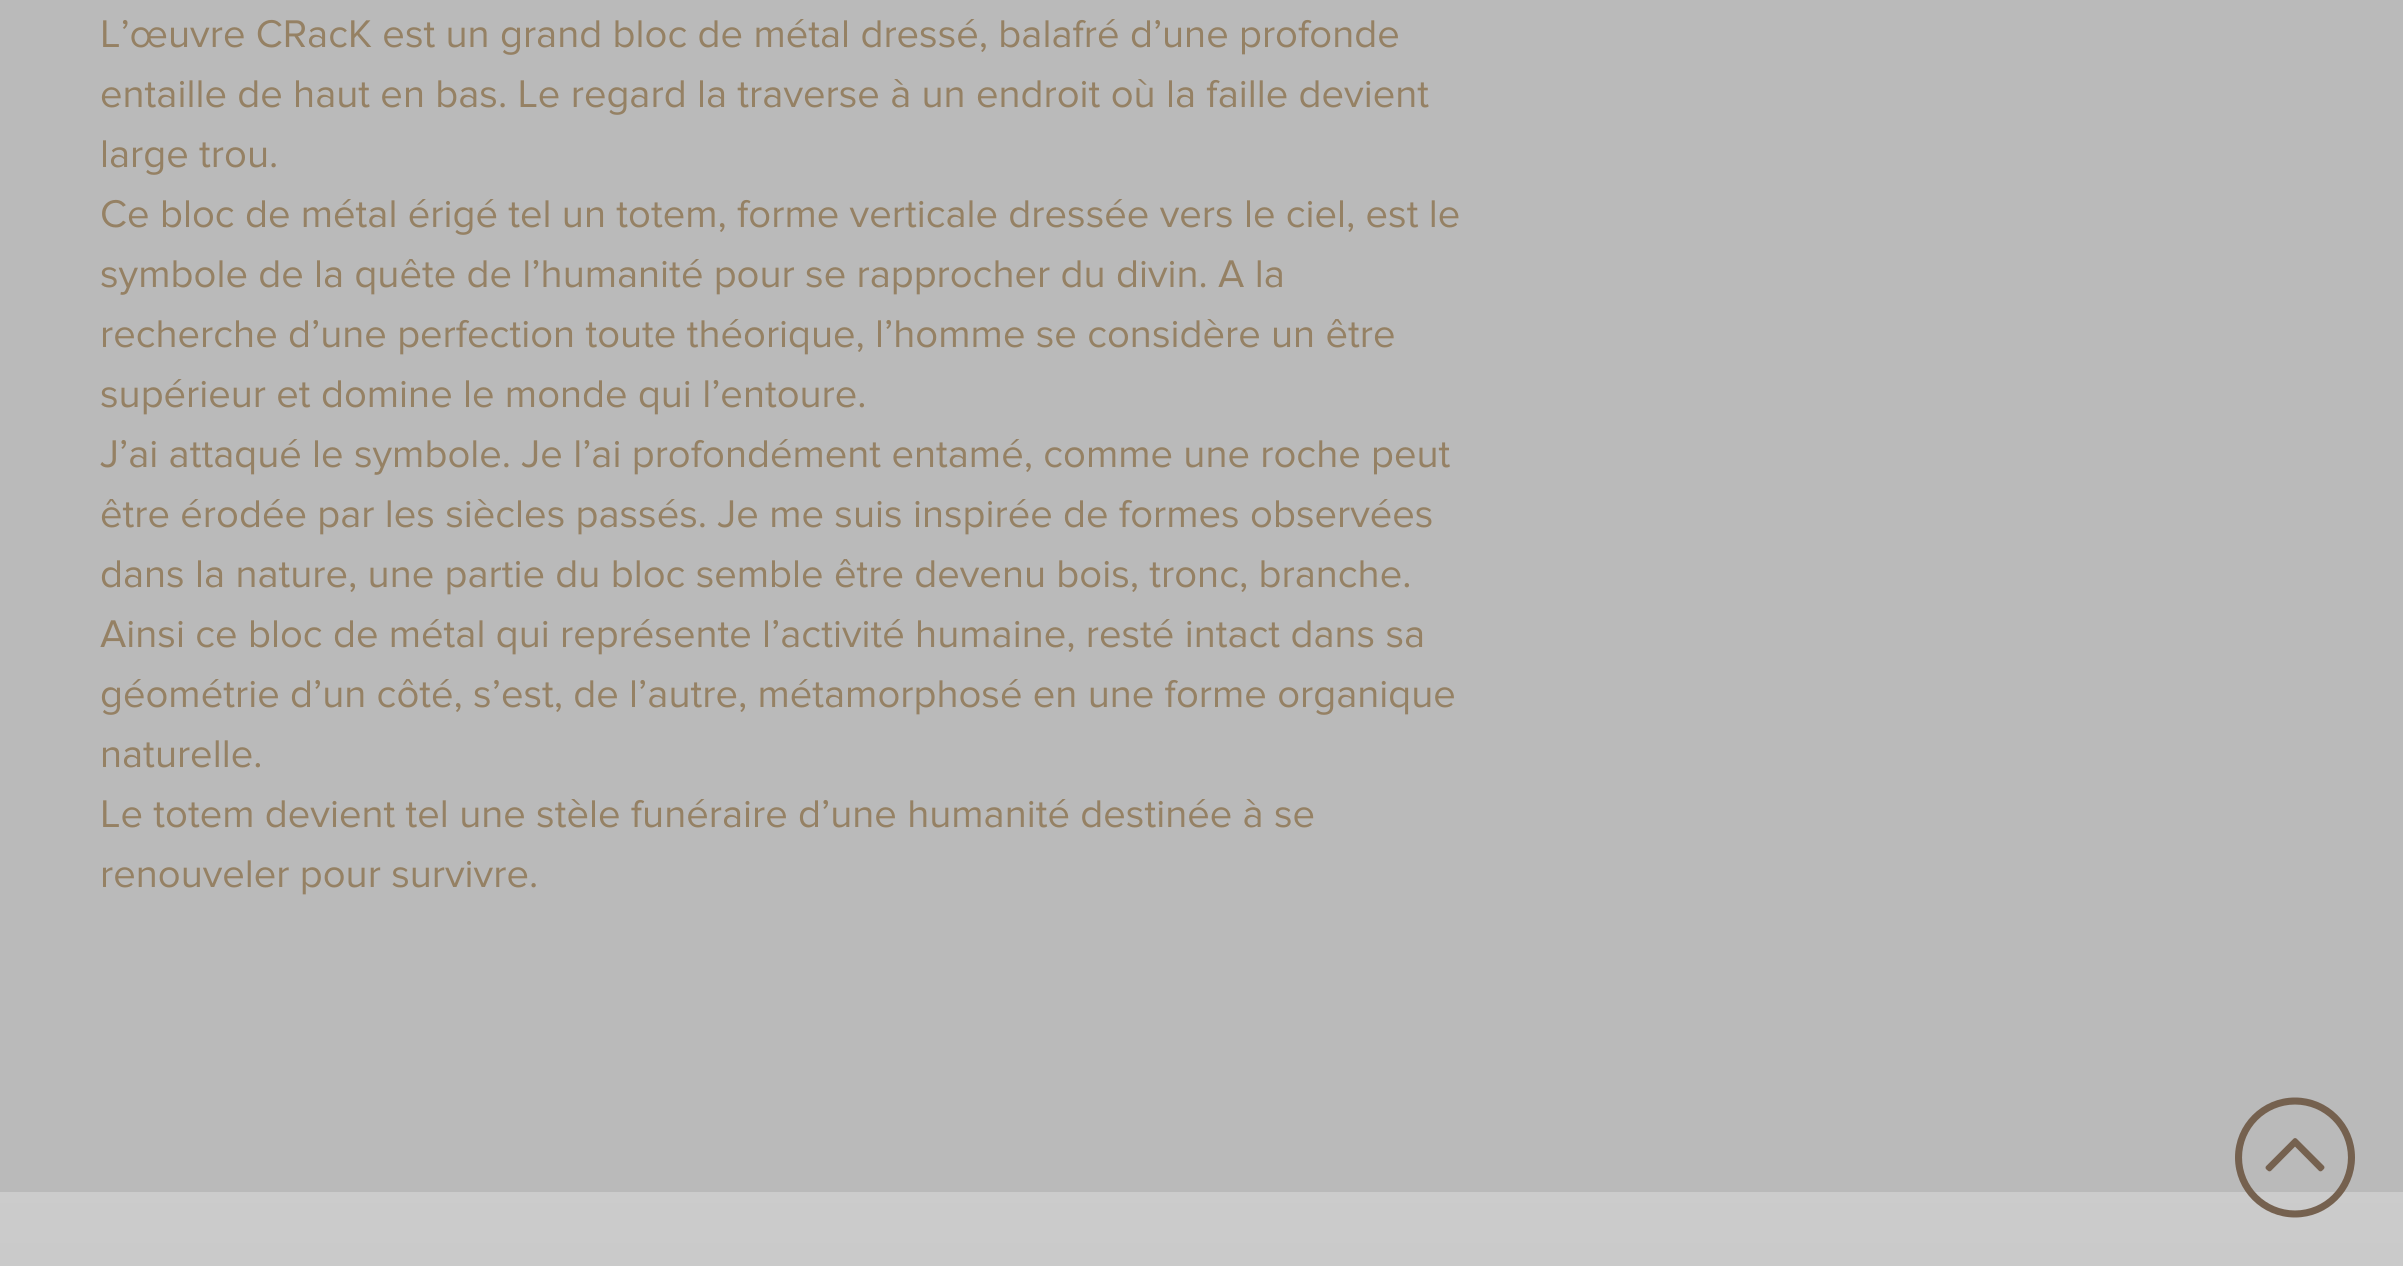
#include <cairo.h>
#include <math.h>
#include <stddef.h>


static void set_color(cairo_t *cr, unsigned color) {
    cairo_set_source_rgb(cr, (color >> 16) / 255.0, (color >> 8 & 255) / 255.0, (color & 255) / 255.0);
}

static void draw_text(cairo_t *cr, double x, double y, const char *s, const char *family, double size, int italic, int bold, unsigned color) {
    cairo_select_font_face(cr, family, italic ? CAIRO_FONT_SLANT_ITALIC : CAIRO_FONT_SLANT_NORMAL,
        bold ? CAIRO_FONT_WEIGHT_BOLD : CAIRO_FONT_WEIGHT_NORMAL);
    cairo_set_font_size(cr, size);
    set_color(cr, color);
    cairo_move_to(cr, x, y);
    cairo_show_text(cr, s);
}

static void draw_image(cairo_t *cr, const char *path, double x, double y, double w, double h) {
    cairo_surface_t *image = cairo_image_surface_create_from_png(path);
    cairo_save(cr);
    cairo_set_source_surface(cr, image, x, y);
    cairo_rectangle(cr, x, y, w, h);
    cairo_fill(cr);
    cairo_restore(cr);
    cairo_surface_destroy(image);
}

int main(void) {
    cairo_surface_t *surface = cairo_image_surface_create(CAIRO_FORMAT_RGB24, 2403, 1266);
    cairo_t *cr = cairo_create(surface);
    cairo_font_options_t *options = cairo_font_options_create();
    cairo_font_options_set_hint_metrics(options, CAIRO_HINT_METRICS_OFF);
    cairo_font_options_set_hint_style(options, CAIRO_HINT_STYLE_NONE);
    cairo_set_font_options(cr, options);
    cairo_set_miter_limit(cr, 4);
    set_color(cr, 0xBABABA);
    cairo_paint(cr);
    draw_text(cr, 100, 47, "L’œuvre CRacK est un grand bloc de métal dressé, balafré d’une profonde", "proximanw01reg", 40, 0, 0, 0x958164);
    draw_text(cr, 100, 107, "entaille de haut en bas. Le regard la traverse à un endroit où la faille devient", "proximanw01reg", 40, 0, 0, 0x958164);
    draw_text(cr, 100, 167, "large trou.", "proximanw01reg", 40, 0, 0, 0x958164);
    draw_text(cr, 100, 227, "Ce bloc de métal érigé tel un totem, forme verticale dressée vers le ciel, est le", "proximanw01reg", 40, 0, 0, 0x958164);
    draw_text(cr, 100, 287, "symbole de la quête de l’humanité pour se rapprocher du divin. A la", "proximanw01reg", 40, 0, 0, 0x958164);
    draw_text(cr, 100, 347, "recherche d’une perfection toute théorique, l’homme se considère un être", "proximanw01reg", 40, 0, 0, 0x958164);
    draw_text(cr, 100, 407, "supérieur et domine le monde qui l’entoure.", "proximanw01reg", 40, 0, 0, 0x958164);
    draw_text(cr, 100, 467, "J’ai attaqué le symbole. Je l’ai profondément entamé, comme une roche peut", "proximanw01reg", 40, 0, 0, 0x958164);
    draw_text(cr, 100, 527, "être érodée par les siècles passés. Je me suis inspirée de formes observées", "proximanw01reg", 40, 0, 0, 0x958164);
    draw_text(cr, 100, 587, "dans la nature, une partie du bloc semble être devenu bois, tronc, branche.", "proximanw01reg", 40, 0, 0, 0x958164);
    draw_text(cr, 100, 647, "Ainsi ce bloc de métal qui représente l’activité humaine, resté intact dans sa", "proximanw01reg", 40, 0, 0, 0x958164);
    draw_text(cr, 100, 707, "géométrie d’un côté, s’est, de l’autre, métamorphosé en une forme organique", "proximanw01reg", 40, 0, 0, 0x958164);
    draw_text(cr, 100, 767, "naturelle.", "proximanw01reg", 40, 0, 0, 0x958164);
    draw_text(cr, 100, 827, "Le totem devient tel une stèle funéraire d’une humanité destinée à se", "proximanw01reg", 40, 0, 0, 0x958164);
    draw_text(cr, 100, 887, "renouveler pour survivre.", "proximanw01reg", 40, 0, 0, 0x958164);
    draw_image(cr, "assets/img2.png", 0, 1192, 2403, 74);
    draw_image(cr, "assets/img1.png", 2235, 1097, 120, 121);
    cairo_surface_write_to_png(surface, "output.png");
    cairo_font_options_destroy(options);
    cairo_destroy(cr);
    cairo_surface_destroy(surface);
    return 0;
}
